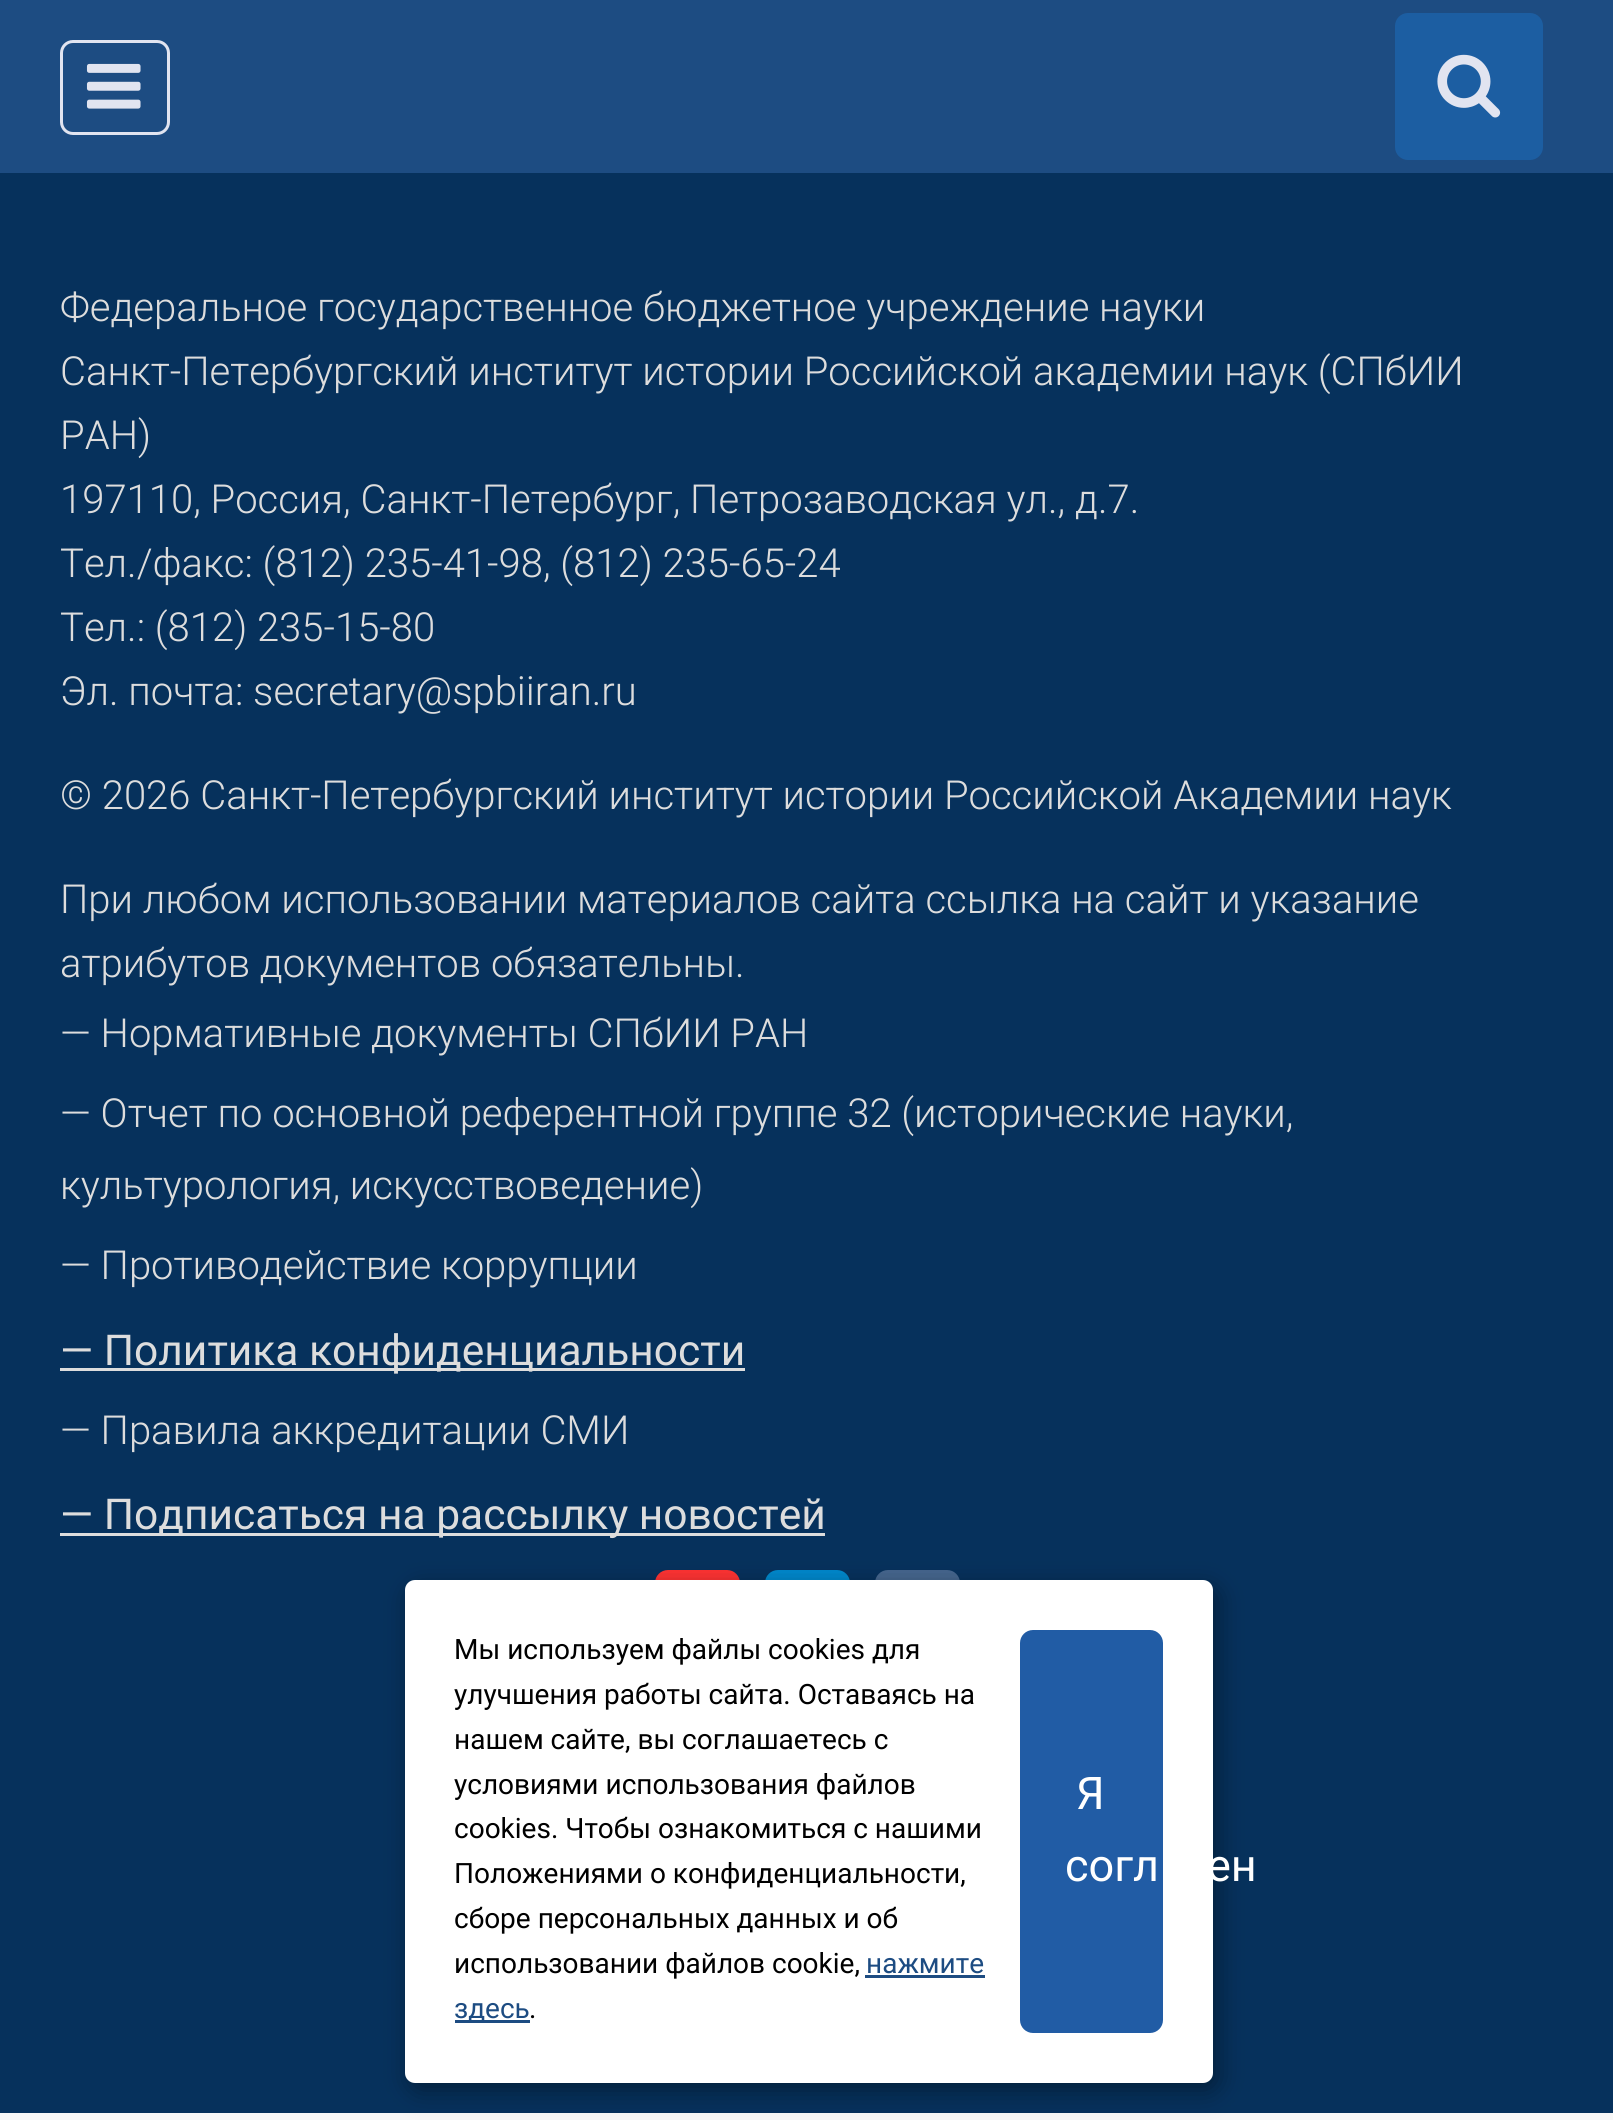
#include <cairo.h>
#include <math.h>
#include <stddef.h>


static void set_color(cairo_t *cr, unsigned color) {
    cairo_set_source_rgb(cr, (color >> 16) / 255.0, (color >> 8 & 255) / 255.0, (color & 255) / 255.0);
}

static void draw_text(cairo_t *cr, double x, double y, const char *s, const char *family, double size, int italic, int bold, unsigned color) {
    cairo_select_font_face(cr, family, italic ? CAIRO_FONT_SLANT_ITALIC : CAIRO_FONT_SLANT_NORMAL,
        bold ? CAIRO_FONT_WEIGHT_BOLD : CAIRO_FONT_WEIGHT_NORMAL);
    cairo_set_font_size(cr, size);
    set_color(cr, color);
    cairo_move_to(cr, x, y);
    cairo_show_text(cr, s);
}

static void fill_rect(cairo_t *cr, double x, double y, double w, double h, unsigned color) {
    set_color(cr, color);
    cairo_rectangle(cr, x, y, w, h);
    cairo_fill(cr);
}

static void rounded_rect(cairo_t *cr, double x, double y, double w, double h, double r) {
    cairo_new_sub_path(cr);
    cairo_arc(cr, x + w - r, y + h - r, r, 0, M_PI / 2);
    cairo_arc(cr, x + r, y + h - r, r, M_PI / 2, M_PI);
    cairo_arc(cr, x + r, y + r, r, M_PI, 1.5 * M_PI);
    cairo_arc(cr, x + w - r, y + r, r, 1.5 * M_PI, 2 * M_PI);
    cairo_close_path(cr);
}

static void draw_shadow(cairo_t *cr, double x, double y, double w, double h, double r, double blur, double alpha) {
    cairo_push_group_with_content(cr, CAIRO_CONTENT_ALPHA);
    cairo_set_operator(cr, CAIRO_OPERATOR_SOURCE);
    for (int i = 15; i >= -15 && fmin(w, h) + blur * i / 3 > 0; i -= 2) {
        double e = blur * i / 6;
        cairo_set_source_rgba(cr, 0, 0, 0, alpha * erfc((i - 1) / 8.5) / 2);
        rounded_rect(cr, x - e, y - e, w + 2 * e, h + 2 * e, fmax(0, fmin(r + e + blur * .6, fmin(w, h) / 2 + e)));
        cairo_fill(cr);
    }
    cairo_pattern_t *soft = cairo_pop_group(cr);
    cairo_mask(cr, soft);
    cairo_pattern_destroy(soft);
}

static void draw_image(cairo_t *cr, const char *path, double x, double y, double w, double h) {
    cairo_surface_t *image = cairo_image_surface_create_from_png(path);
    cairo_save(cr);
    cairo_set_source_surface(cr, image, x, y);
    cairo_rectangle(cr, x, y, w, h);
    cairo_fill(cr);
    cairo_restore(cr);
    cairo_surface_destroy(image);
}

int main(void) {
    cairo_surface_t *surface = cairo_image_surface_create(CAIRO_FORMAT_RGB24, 1613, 2120);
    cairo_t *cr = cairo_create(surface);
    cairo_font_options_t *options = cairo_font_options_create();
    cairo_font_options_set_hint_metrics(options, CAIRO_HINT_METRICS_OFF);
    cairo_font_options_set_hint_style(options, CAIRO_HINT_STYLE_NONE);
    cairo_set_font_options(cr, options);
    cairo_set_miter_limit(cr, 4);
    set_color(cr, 0xF7F7F7);
    cairo_paint(cr);
    fill_rect(cr, 0, 0, 1613, 173, 0x1D4C82);
    rounded_rect(cr, 61.5, 41.5, 107, 92, 11.5);
    set_color(cr, 0xE1E4F0);
    cairo_set_line_width(cr, 3);
    cairo_stroke(cr);
    draw_image(cr, "assets/img1.png", 86, 63, 55, 46);
    set_color(cr, 0x1C5EA2);
    rounded_rect(cr, 1395, 13, 148, 147, 13);
    cairo_fill(cr);
    draw_image(cr, "assets/img2.png", 1437, 54, 64, 64);
    fill_rect(cr, 0, 173, 1613, 1940, 0x06315C);
    draw_text(cr, 60, 321, "Федеральное государственное бюджетное учреждение науки", "Roboto Light", 40, 0, 0, 0xDDDDDD);
    draw_text(cr, 60, 385, "Санкт-Петербургский институт истории Российской академии наук (СПбИИ", "Roboto Light", 40, 0, 0, 0xDDDDDD);
    draw_text(cr, 60, 449, "РАН)", "Roboto Light", 40, 0, 0, 0xDDDDDD);
    draw_text(cr, 60, 513, "197110, Россия, Санкт-Петербург, Петрозаводская ул., д.7.", "Roboto Light", 40, 0, 0, 0xDDDDDD);
    draw_text(cr, 60, 577, "Tел./факс: (812) 235-41-98, (812) 235-65-24", "Roboto Light", 40, 0, 0, 0xDDDDDD);
    draw_text(cr, 60, 641, "Тел.: (812) 235-15-80", "Roboto Light", 40, 0, 0, 0xDDDDDD);
    draw_text(cr, 60, 705, "Эл. почта: secretary@spbiiran.ru", "Roboto Light", 40, 0, 0, 0xDDDDDD);
    draw_text(cr, 60, 809, "© 2026 Санкт-Петербургский институт истории Российской Академии наук", "Roboto Light", 40, 0, 0, 0xDDDDDD);
    draw_text(cr, 60, 913, "При любом использовании материалов сайта ссылка на сайт и указание", "Roboto Light", 40, 0, 0, 0xDDDDDD);
    draw_text(cr, 60, 977, "атрибутов документов обязательны.", "Roboto Light", 40, 0, 0, 0xDDDDDD);
    draw_text(cr, 60, 1047, "— Нормативные документы СПбИИ РАН", "Roboto Light", 40, 0, 0, 0xDDDDDD);
    draw_text(cr, 60, 1127, "— Отчет по основной референтной группе 32 (исторические науки,", "Roboto Light", 40, 0, 0, 0xDDDDDD);
    draw_text(cr, 60, 1199, "культурология, искусствоведение)", "Roboto Light", 40, 0, 0, 0xDDDDDD);
    draw_text(cr, 60, 1279, "— Противодействие коррупции", "Roboto Light", 40, 0, 0, 0xDDDDDD);
    fill_rect(cr, 60, 1368, 685, 3, 0xDDDDDD);
    draw_text(cr, 60, 1365, "— Политика конфиденциальности", "Roboto", 42.5, 0, 0, 0xDDDDDD);
    draw_text(cr, 60, 1444, "— Правила аккредитации СМИ", "Roboto Light", 40, 0, 0, 0xDDDDDD);
    fill_rect(cr, 60, 1533, 765, 3, 0xDDDDDD);
    draw_text(cr, 60, 1529, "— Подписаться на рассылку новостей", "Roboto", 42.5, 0, 0, 0xDDDDDD);
    set_color(cr, 0xFF3333);
    rounded_rect(cr, 655, 1570, 85, 85, 13);
    cairo_fill(cr);
    set_color(cr, 0x0088CC);
    rounded_rect(cr, 765, 1570, 85, 85, 13);
    cairo_fill(cr);
    set_color(cr, 0x45668E);
    rounded_rect(cr, 875, 1570, 85, 85, 13);
    cairo_fill(cr);
    set_color(cr, 0x000000);
    draw_shadow(cr, 410, 1588, 808, 502, 10, 12.5, 0.4);
    set_color(cr, 0xFFFFFF);
    rounded_rect(cr, 405, 1580, 808, 503, 10);
    cairo_fill(cr);
    draw_text(cr, 454, 1659, "Мы используем файлы cookies для", "Roboto", 28, 0, 0, 0x000000);
    draw_text(cr, 454, 1704, "улучшения работы сайта. Оставаясь на", "Roboto", 28, 0, 0, 0x000000);
    draw_text(cr, 454, 1749, "нашем сайте, вы соглашаетесь с", "Roboto", 28, 0, 0, 0x000000);
    draw_text(cr, 454, 1794, "условиями использования файлов", "Roboto", 28, 0, 0, 0x000000);
    draw_text(cr, 454, 1838, "cookies. Чтобы ознакомиться с нашими", "Roboto", 28, 0, 0, 0x000000);
    draw_text(cr, 454, 1883, "Положениями о конфиденциальности,", "Roboto", 28, 0, 0, 0x000000);
    draw_text(cr, 454, 1928, "сборе персональных данных и об", "Roboto", 28, 0, 0, 0x000000);
    draw_text(cr, 454, 1973, "использовании файлов cookie,", "Roboto", 28, 0, 0, 0x000000);
    draw_text(cr, 866, 1973, "нажмите", "Roboto", 28, 0, 0, 0x1D4C82);
    fill_rect(cr, 865, 1975, 120, 3, 0x1D4C82);
    fill_rect(cr, 455, 2020, 75, 3, 0x1D4C82);
    draw_text(cr, 454, 2018, "здесь", "Roboto", 28, 0, 0, 0x1D4C82);
    draw_text(cr, 529, 2018, ".", "Roboto", 28, 0, 0, 0x000000);
    set_color(cr, 0x215CA5);
    rounded_rect(cr, 1020, 1630, 143, 403, 13);
    cairo_fill(cr);
    draw_text(cr, 1076, 1809, "Я", "Roboto", 45, 0, 0, 0xFFFFFF);
    draw_text(cr, 1065, 1881, "согл", "Roboto", 45, 0, 0, 0xFFFFFF);
    draw_text(cr, 1207, 1881, "ен", "Roboto", 45, 0, 0, 0xFFFFFF);
    cairo_surface_write_to_png(surface, "output.png");
    cairo_font_options_destroy(options);
    cairo_destroy(cr);
    cairo_surface_destroy(surface);
    return 0;
}
